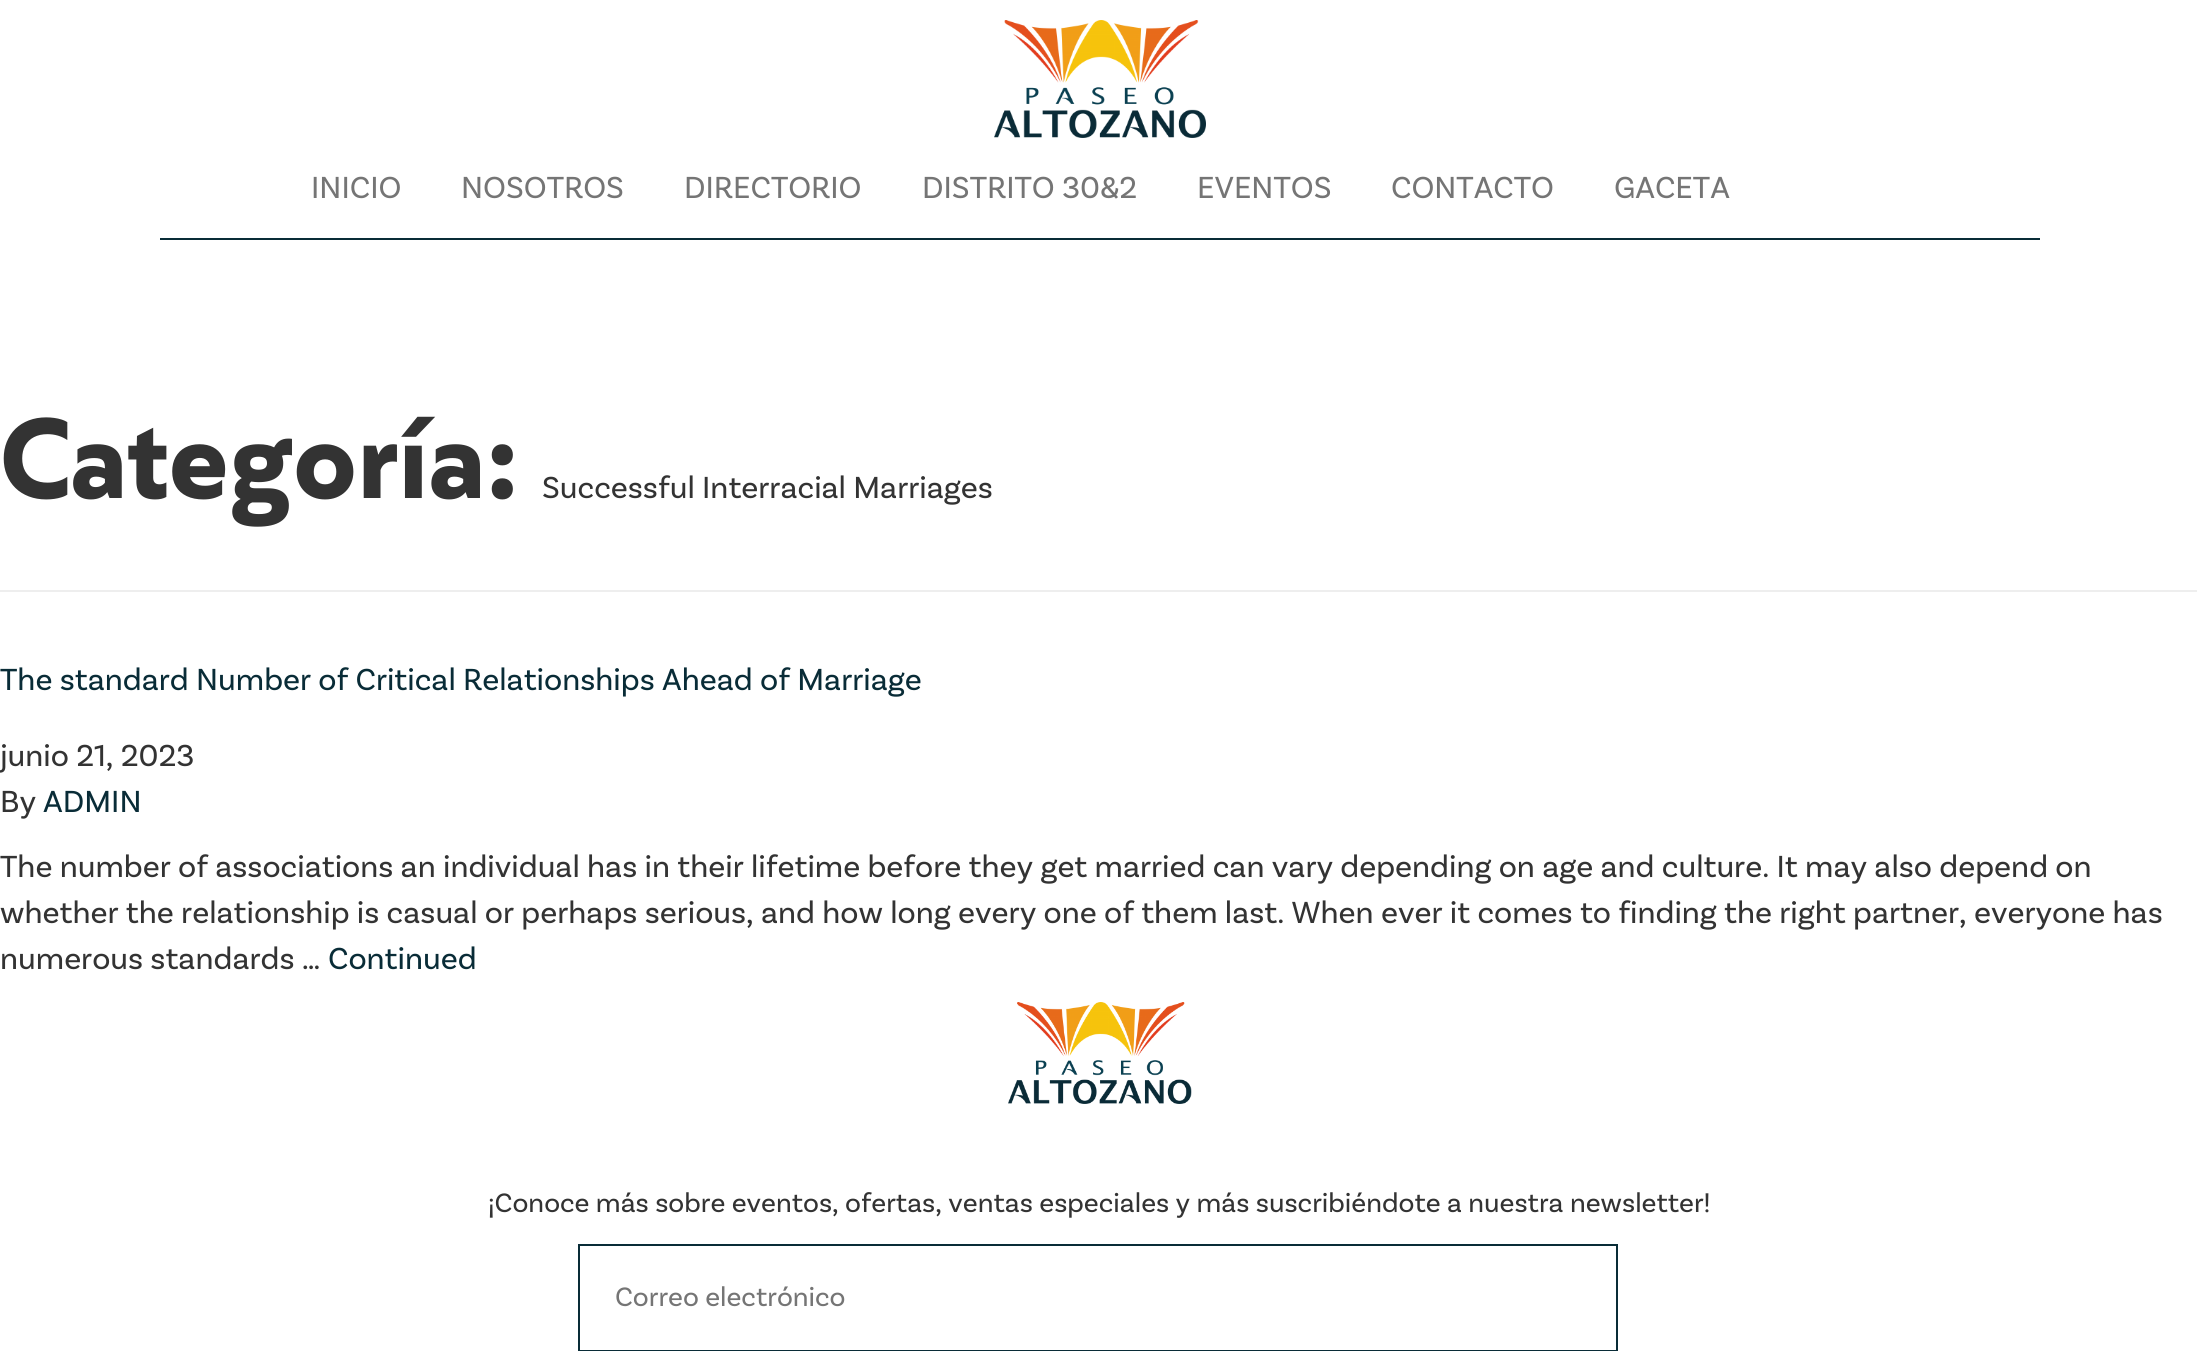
#include <cairo.h>
#include <math.h>
#include <stddef.h>


static void set_color(cairo_t *cr, unsigned color) {
    cairo_set_source_rgb(cr, (color >> 16) / 255.0, (color >> 8 & 255) / 255.0, (color & 255) / 255.0);
}

static void draw_text(cairo_t *cr, double x, double y, const char *s, const char *family, double size, int italic, int bold, unsigned color) {
    cairo_select_font_face(cr, family, italic ? CAIRO_FONT_SLANT_ITALIC : CAIRO_FONT_SLANT_NORMAL,
        bold ? CAIRO_FONT_WEIGHT_BOLD : CAIRO_FONT_WEIGHT_NORMAL);
    cairo_set_font_size(cr, size);
    set_color(cr, color);
    cairo_move_to(cr, x, y);
    cairo_show_text(cr, s);
}

static void fill_rect(cairo_t *cr, double x, double y, double w, double h, unsigned color) {
    set_color(cr, color);
    cairo_rectangle(cr, x, y, w, h);
    cairo_fill(cr);
}

static void draw_image(cairo_t *cr, const char *path, double x, double y, double w, double h) {
    cairo_surface_t *image = cairo_image_surface_create_from_png(path);
    cairo_save(cr);
    cairo_set_source_surface(cr, image, x, y);
    cairo_rectangle(cr, x, y, w, h);
    cairo_fill(cr);
    cairo_restore(cr);
    cairo_surface_destroy(image);
}

int main(void) {
    cairo_surface_t *surface = cairo_image_surface_create(CAIRO_FORMAT_RGB24, 2197, 1351);
    cairo_t *cr = cairo_create(surface);
    cairo_font_options_t *options = cairo_font_options_create();
    cairo_font_options_set_hint_metrics(options, CAIRO_HINT_METRICS_OFF);
    cairo_font_options_set_hint_style(options, CAIRO_HINT_STYLE_NONE);
    cairo_set_font_options(cr, options);
    cairo_set_miter_limit(cr, 4);
    set_color(cr, 0xFFFFFF);
    cairo_paint(cr);
    draw_image(cr, "assets/img1.png", 994, 20, 212, 118);
    fill_rect(cr, 160, 238, 1880, 2, 0x092C37);
    draw_text(cr, 311, 198, "INICIO", "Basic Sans", 32, 0, 0, 0x757575);
    draw_text(cr, 461, 198, "NOSOTROS", "Basic Sans", 32, 0, 0, 0x757575);
    draw_text(cr, 684, 198, "DIRECTORIO", "Basic Sans", 32, 0, 0, 0x757575);
    draw_text(cr, 922, 198, "DISTRITO 30&2", "Basic Sans", 32, 0, 0, 0x757575);
    draw_text(cr, 1197, 198, "EVENTOS", "Basic Sans", 32, 0, 0, 0x757575);
    draw_text(cr, 1391, 198, "CONTACTO", "Basic Sans", 32, 0, 0, 0x757575);
    draw_text(cr, 1614, 198, "GACETA", "Basic Sans", 32, 0, 0, 0x757575);
    fill_rect(cr, 0, 590, 2197, 2, 0xEEEEEE);
    draw_text(cr, 0, 498, "Categoría:", "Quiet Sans", 120, 0, 1, 0x333333);
    draw_text(cr, 542, 498, "Successful Interracial Marriages", "Basic Sans", 32, 0, 0, 0x333333);
    draw_text(cr, 0, 690, "The standard Number of Critical Relationships Ahead of Marriage", "Basic Sans", 32, 0, 0, 0x092C37);
    draw_text(cr, 0, 766, "junio 21, 2023", "Basic Sans", 32, 0, 0, 0x333333);
    draw_text(cr, 0, 812, "By", "Basic Sans", 32, 0, 0, 0x333333);
    draw_text(cr, 43, 812, "ADMIN", "Basic Sans", 32, 0, 0, 0x092C37);
    draw_text(cr, 0, 877, "The number of associations an individual has in their lifetime before they get married can vary depending on age and culture. It may also depend on", "Basic Sans", 32, 0, 0, 0x333333);
    draw_text(cr, 0, 923, "whether the relationship is casual or perhaps serious, and how long every one of them last. When ever it comes to finding the right partner, everyone has", "Basic Sans", 32, 0, 0, 0x333333);
    draw_text(cr, 0, 969, "numerous standards …", "Basic Sans", 32, 0, 0, 0x333333);
    draw_text(cr, 328, 969, "Continued", "Basic Sans", 32, 0, 0, 0x092C37);
    draw_image(cr, "assets/img2.png", 1008, 1002, 184, 102);
    draw_text(cr, 488, 1212, "¡Conoce más sobre eventos, ofertas, ventas especiales y más suscribiéndote a nuestra newsletter!", "Basic Sans", 28, 0, 0, 0x333333);
    cairo_rectangle(cr, 579, 1245, 1038, 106);
    set_color(cr, 0x092C37);
    cairo_stroke(cr);
    draw_text(cr, 615, 1306, "Correo electrónico", "Basic Sans", 28, 0, 0, 0x757575);
    cairo_surface_write_to_png(surface, "output.png");
    cairo_font_options_destroy(options);
    cairo_destroy(cr);
    cairo_surface_destroy(surface);
    return 0;
}
